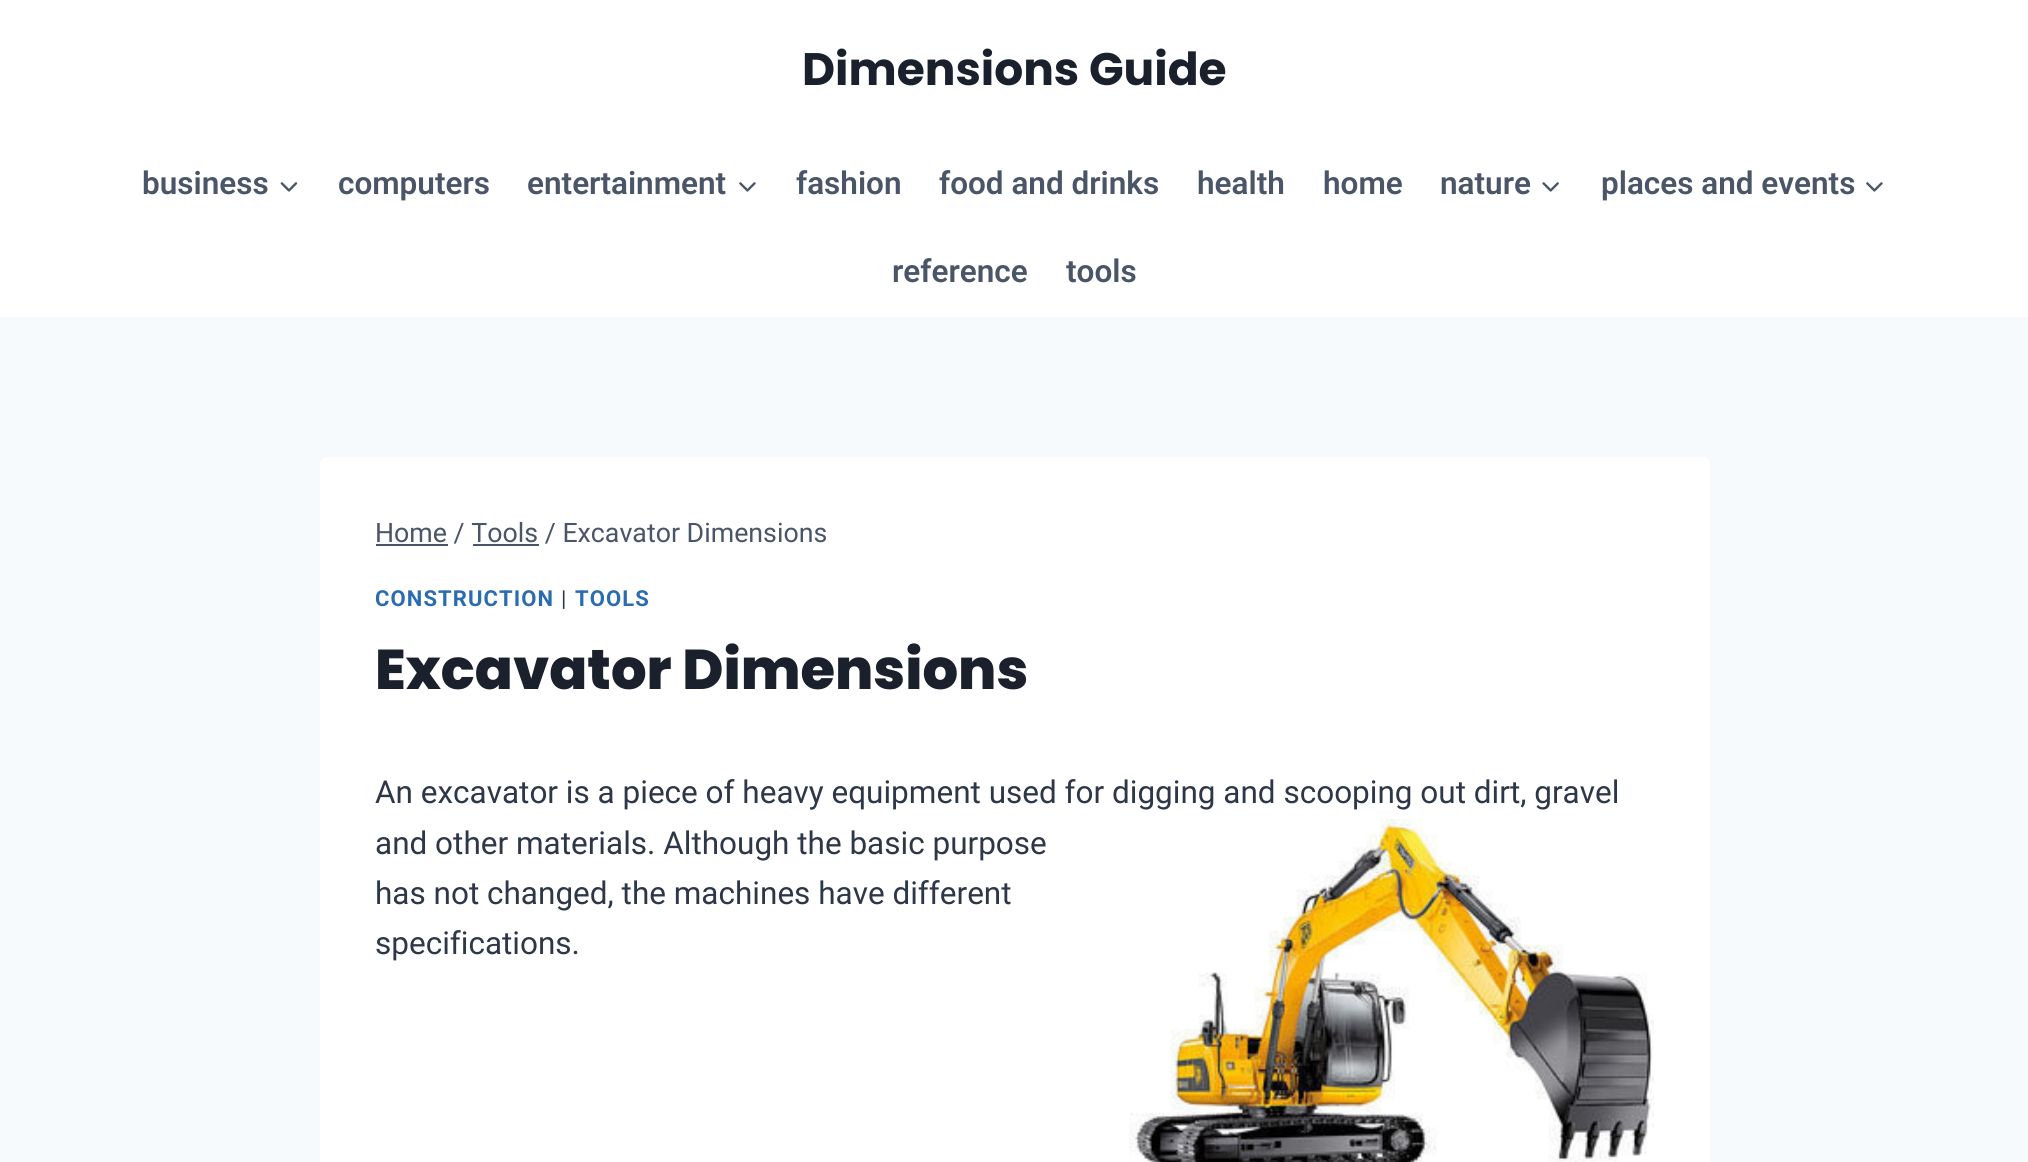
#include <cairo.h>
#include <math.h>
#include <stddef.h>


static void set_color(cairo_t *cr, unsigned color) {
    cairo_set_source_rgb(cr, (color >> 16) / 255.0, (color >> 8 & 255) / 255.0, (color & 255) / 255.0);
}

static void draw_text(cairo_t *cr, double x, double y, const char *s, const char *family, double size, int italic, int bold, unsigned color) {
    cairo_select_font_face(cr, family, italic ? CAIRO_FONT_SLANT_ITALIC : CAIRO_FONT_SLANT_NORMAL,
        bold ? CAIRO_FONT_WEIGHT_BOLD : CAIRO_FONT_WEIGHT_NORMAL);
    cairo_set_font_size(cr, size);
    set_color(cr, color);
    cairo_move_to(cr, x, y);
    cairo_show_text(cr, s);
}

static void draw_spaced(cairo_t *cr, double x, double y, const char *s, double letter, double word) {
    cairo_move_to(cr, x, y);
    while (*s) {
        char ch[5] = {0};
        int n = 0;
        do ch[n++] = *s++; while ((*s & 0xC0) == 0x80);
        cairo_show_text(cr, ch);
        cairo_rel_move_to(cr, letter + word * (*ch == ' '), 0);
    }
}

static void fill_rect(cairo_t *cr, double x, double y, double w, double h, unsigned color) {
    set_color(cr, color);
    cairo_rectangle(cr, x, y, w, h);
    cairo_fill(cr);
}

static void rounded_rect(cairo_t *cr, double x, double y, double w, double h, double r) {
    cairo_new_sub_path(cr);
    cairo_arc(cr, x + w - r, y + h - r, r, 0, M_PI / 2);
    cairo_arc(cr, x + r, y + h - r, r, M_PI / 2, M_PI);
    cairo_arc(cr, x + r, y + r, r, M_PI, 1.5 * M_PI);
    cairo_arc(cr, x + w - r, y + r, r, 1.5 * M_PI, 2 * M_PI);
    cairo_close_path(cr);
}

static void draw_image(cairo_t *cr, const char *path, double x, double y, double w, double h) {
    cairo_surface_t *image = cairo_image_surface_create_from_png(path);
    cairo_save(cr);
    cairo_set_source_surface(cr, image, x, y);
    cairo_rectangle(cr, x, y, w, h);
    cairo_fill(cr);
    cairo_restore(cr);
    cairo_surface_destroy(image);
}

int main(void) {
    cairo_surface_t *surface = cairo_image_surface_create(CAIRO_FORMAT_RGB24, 2028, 1162);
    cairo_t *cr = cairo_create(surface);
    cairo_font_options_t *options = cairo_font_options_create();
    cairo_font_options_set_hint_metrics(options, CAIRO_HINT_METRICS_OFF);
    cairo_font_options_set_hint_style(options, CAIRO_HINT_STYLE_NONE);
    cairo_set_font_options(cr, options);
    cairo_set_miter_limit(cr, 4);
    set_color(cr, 0xF7FAFC);
    cairo_paint(cr);
    fill_rect(cr, 0, 0, 2028, 317, 0xFFFFFF);
    draw_text(cr, 802, 85, "Dimensions Guide", "Poppins", 45.5, 0, 1, 0x1A202C);
    draw_text(cr, 142, 194, "business", "Roboto SemiBold", 31.5, 0, 0, 0x4A5568);
    draw_image(cr, "assets/img1.png", 280, 182, 18, 10);
    draw_text(cr, 338, 194, "computers", "Roboto SemiBold", 31.5, 0, 0, 0x4A5568);
    draw_text(cr, 527, 194, "entertainment", "Roboto SemiBold", 31.5, 0, 0, 0x4A5568);
    draw_image(cr, "assets/img2.png", 739, 182, 17, 10);
    draw_text(cr, 796, 194, "fashion", "Roboto SemiBold", 31.5, 0, 0, 0x4A5568);
    draw_text(cr, 939, 194, "food and drinks", "Roboto SemiBold", 31.5, 0, 0, 0x4A5568);
    draw_text(cr, 1197, 194, "health", "Roboto SemiBold", 31.5, 0, 0, 0x4A5568);
    draw_text(cr, 1323, 194, "home", "Roboto SemiBold", 31.5, 0, 0, 0x4A5568);
    draw_text(cr, 1440, 194, "nature", "Roboto SemiBold", 31.5, 0, 0, 0x4A5568);
    draw_image(cr, "assets/img3.png", 1542, 182, 17, 10);
    draw_text(cr, 1601, 194, "places and events", "Roboto SemiBold", 31.5, 0, 0, 0x4A5568);
    draw_image(cr, "assets/img2.png", 1866, 182, 17, 10);
    draw_text(cr, 892, 282, "reference", "Roboto SemiBold", 31.5, 0, 0, 0x4A5568);
    draw_text(cr, 1066, 282, "tools", "Roboto SemiBold", 31.5, 0, 0, 0x4A5568);
    set_color(cr, 0xFFFFFF);
    rounded_rect(cr, 320, 457, 1390, 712, 7);
    cairo_fill(cr);
    draw_text(cr, 375, 542, "Home / Tools / Excavator Dimensions", "Roboto", 26.75, 0, 0, 0x4A5568);
    fill_rect(cr, 376, 544, 72, 2, 0x4A5568);
    fill_rect(cr, 473, 544, 66, 2, 0x4A5568);
    cairo_select_font_face(cr, "Roboto", CAIRO_FONT_SLANT_NORMAL, CAIRO_FONT_WEIGHT_BOLD);
    cairo_set_font_size(cr, 22);
    set_color(cr, 0x2B6CB0);
    draw_spaced(cr, 375, 606, "CONSTRUCTION", 1.1, 0);
    cairo_select_font_face(cr, "Roboto", CAIRO_FONT_SLANT_NORMAL, CAIRO_FONT_WEIGHT_NORMAL);
    set_color(cr, 0x2D3748);
    draw_spaced(cr, 561, 606, "|", 1.1, 0);
    cairo_select_font_face(cr, "Roboto", CAIRO_FONT_SLANT_NORMAL, CAIRO_FONT_WEIGHT_BOLD);
    set_color(cr, 0x2B6CB0);
    draw_spaced(cr, 575, 606, "TOOLS", 1.1, 0);
    draw_text(cr, 375, 689, "Excavator Dimensions", "Poppins ExtraBold", 56, 0, 0, 0x1A202C);
    draw_text(cr, 375, 803, "An excavator is a piece of heavy equipment used for digging and scooping out dirt, gravel", "Roboto", 31.5, 0, 0, 0x2D3748);
    draw_text(cr, 375, 854, "and other materials. Although the basic purpose", "Roboto", 31.5, 0, 0, 0x2D3748);
    draw_image(cr, "assets/img4.png", 1129, 819, 525, 343);
    draw_text(cr, 375, 904, "has not changed, the machines have different", "Roboto", 31.5, 0, 0, 0x2D3748);
    draw_text(cr, 375, 954, "specifications.", "Roboto", 31.5, 0, 0, 0x2D3748);
    cairo_surface_write_to_png(surface, "output.png");
    cairo_font_options_destroy(options);
    cairo_destroy(cr);
    cairo_surface_destroy(surface);
    return 0;
}
